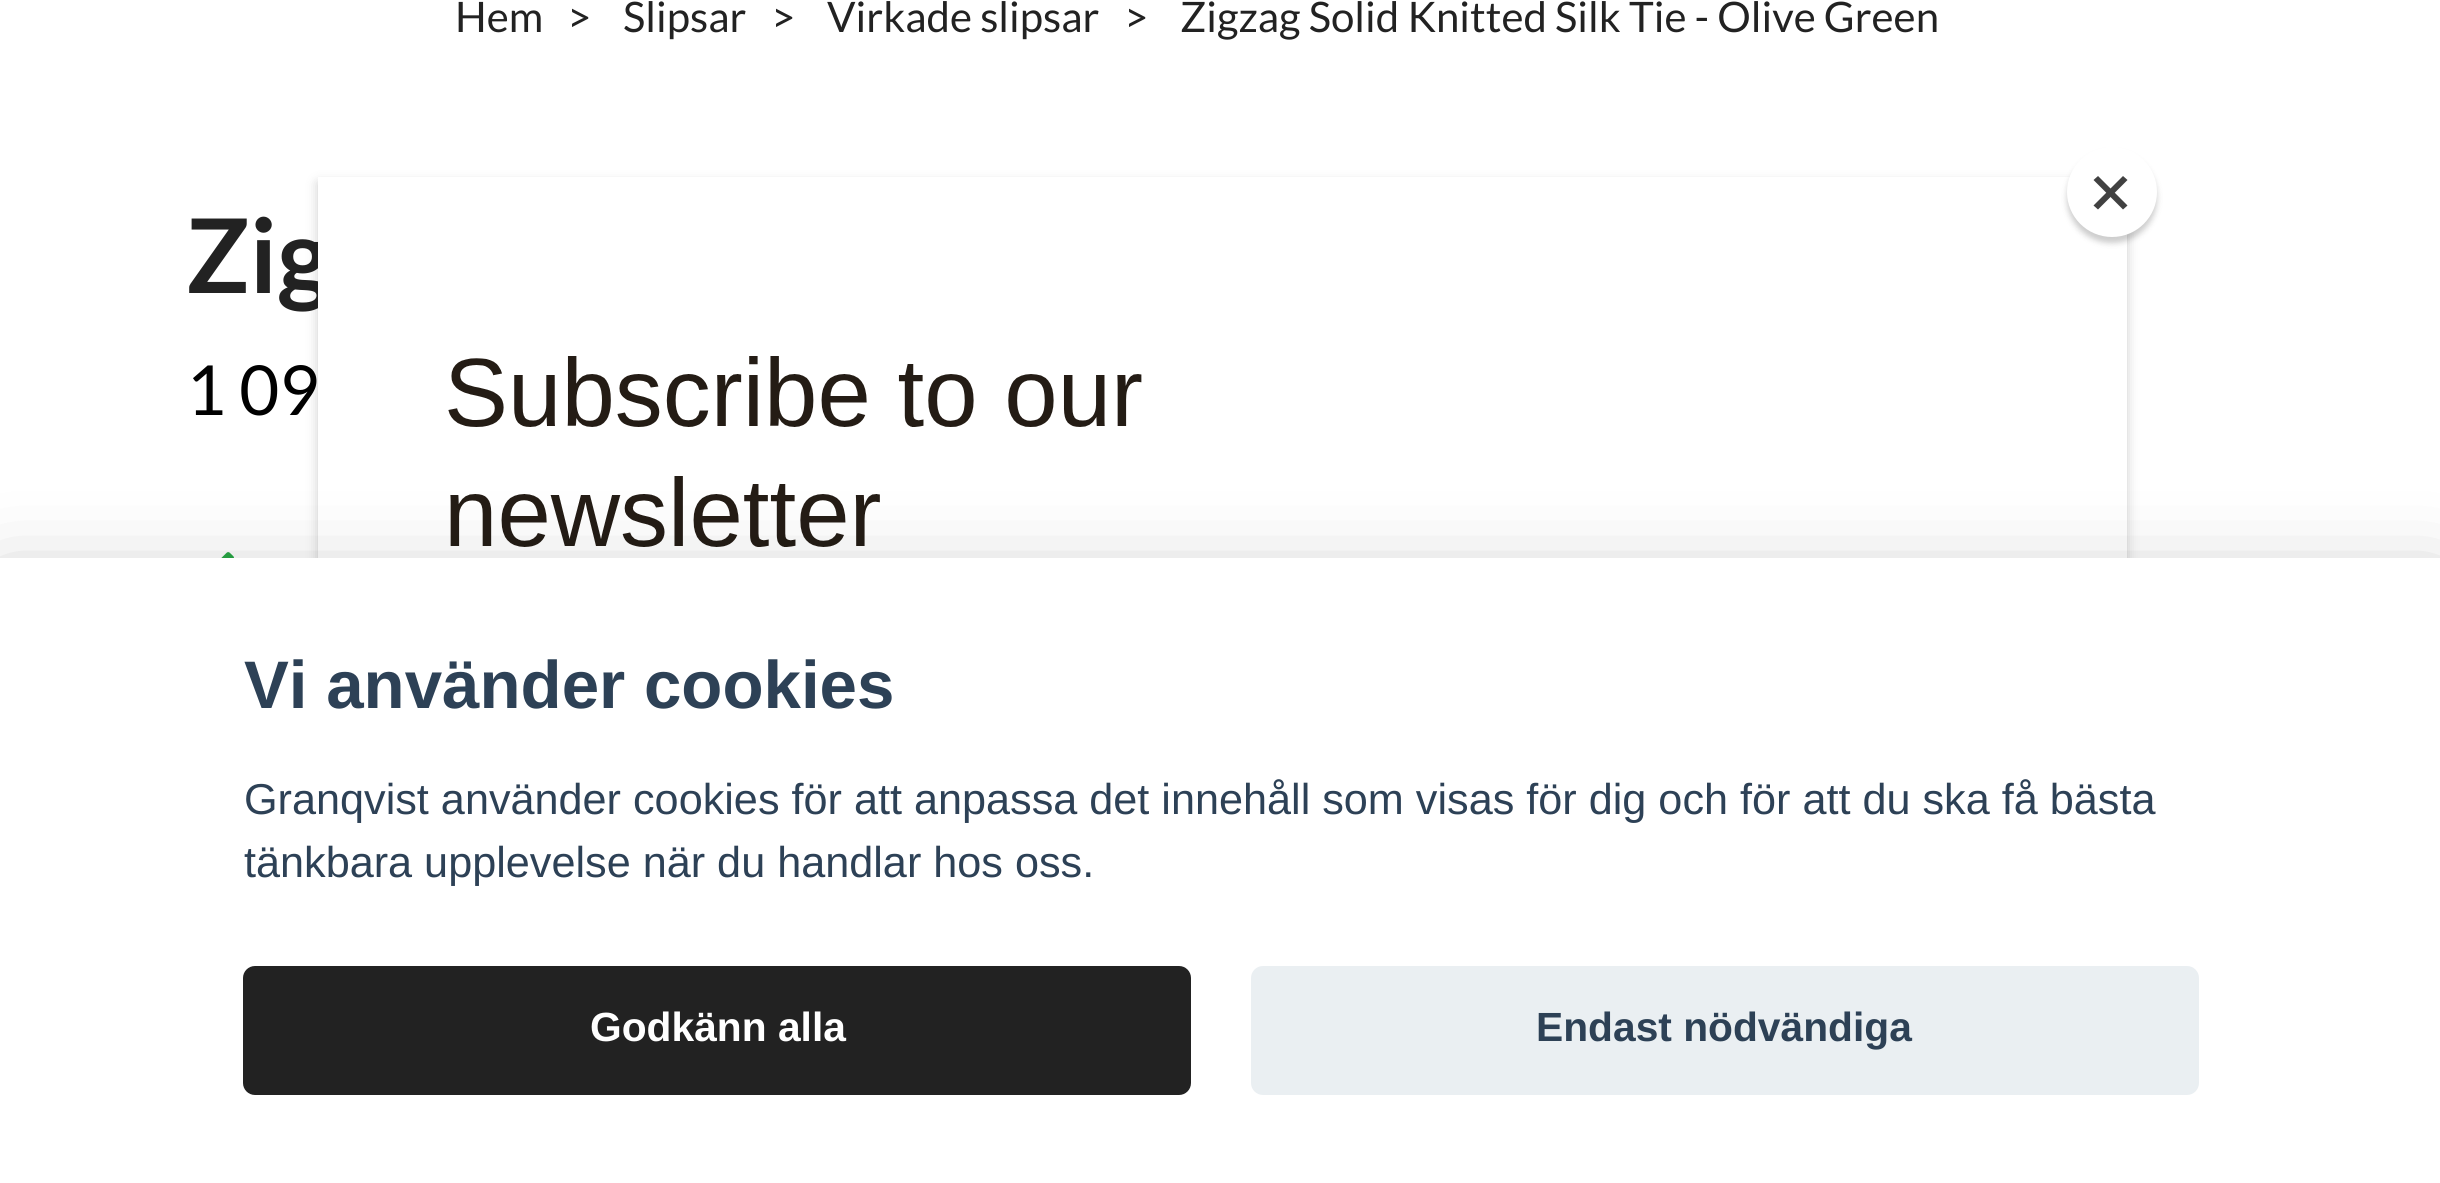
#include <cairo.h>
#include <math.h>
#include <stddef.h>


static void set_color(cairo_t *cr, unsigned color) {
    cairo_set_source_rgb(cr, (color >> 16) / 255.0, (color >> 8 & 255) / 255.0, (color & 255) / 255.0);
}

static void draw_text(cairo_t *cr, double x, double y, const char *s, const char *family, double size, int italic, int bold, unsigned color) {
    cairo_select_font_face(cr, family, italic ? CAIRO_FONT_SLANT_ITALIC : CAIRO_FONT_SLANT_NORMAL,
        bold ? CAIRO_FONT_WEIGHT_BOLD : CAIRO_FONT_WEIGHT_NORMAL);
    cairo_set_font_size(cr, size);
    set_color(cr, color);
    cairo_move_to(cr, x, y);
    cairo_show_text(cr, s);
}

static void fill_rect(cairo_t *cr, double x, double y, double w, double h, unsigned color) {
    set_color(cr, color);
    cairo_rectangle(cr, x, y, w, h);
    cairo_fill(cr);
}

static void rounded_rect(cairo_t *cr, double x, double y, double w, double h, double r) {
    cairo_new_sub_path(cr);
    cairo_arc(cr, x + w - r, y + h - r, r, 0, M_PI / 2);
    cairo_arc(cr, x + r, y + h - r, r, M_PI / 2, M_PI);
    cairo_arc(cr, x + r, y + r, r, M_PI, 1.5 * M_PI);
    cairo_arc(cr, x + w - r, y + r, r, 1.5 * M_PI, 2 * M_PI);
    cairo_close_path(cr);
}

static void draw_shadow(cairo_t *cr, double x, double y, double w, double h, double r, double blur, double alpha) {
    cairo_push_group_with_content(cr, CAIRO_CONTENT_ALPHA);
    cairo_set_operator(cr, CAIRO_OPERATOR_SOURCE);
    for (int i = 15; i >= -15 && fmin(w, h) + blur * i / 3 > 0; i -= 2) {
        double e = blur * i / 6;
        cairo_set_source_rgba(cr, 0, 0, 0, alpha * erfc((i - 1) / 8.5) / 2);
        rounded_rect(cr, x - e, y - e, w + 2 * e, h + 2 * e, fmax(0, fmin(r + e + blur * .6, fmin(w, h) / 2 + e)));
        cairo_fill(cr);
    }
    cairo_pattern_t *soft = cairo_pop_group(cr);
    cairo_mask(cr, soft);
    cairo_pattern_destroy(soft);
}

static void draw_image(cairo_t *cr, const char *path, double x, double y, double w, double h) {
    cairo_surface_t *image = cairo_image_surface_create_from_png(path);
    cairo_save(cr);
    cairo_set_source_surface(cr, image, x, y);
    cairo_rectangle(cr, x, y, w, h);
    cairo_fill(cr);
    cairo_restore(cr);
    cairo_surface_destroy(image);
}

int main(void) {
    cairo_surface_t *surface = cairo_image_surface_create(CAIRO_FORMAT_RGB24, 2440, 1183);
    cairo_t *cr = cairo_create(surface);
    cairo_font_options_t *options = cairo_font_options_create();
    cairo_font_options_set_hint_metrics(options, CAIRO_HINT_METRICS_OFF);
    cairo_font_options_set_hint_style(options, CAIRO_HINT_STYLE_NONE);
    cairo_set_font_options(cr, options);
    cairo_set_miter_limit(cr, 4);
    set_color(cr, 0xFFFFFF);
    cairo_paint(cr);
    draw_text(cr, 455, 32, "Hem", "Lato", 42, 0, 0, 0x222222);
    draw_text(cr, 567, 32, ">", "Lato", 42, 0, 0, 0x222222);
    draw_text(cr, 623, 32, "Slipsar", "Lato", 42, 0, 0, 0x222222);
    draw_text(cr, 771, 32, ">", "Lato", 42, 0, 0, 0x222222);
    draw_text(cr, 827, 32, "Virkade slipsar", "Lato", 42, 0, 0, 0x222222);
    draw_text(cr, 1124, 32, ">", "Lato", 42, 0, 0, 0x222222);
    draw_text(cr, 1180, 32, "Zigzag Solid Knitted Silk Tie - Olive Green", "Lato", 42, 0, 0, 0x222222);
    draw_text(cr, 186, 293, "Zig", "Lato", 103, 0, 1, 0x222222);
    draw_text(cr, 186, 415, "1 09", "Lato", 69, 0, 0, 0x000000);
    draw_image(cr, "assets/img1.png", 221, 552, 13, 6);
    cairo_save(cr);
    cairo_set_fill_rule(cr, CAIRO_FILL_RULE_EVEN_ODD);
    cairo_new_path(cr);
    cairo_move_to(cr, 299, 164);
    cairo_line_to(cr, 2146, 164);
    cairo_line_to(cr, 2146, 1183);
    cairo_line_to(cr, 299, 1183);
    cairo_close_path(cr);
    cairo_move_to(cr, 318, 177);
    cairo_line_to(cr, 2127, 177);
    cairo_line_to(cr, 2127, 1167);
    cairo_line_to(cr, 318, 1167);
    cairo_close_path(cr);
    cairo_clip(cr);
    set_color(cr, 0x000000);
    draw_shadow(cr, 318, 183, 1809, 990, 0, 6, 0.2);
    cairo_restore(cr);
    draw_image(cr, "assets/img2.png", 318, 216, 1809, 342);
    set_color(cr, 0x000000);
    draw_shadow(cr, 2067, 153, 90, 90, 45, 3, 0.2);
    set_color(cr, 0xFFFFFF);
    cairo_arc(cr, 2112, 192, 45, 0, 2 * M_PI);
    cairo_fill(cr);
    set_color(cr, 0x414141);
    cairo_new_path(cr);
    cairo_move_to(cr, 2123, 176);
    cairo_line_to(cr, 2127.5, 180);
    cairo_line_to(cr, 2098, 209.5);
    cairo_line_to(cr, 2093.5, 205.5);
    cairo_close_path(cr);
    cairo_fill(cr);
    cairo_new_path(cr);
    cairo_move_to(cr, 2093.5, 180);
    cairo_line_to(cr, 2098, 176);
    cairo_line_to(cr, 2127.5, 205.5);
    cairo_line_to(cr, 2123, 209.5);
    cairo_close_path(cr);
    cairo_fill(cr);
    set_color(cr, 0x020203);
    draw_shadow(cr, 0, 588, 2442, 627, 0, 45, 0.28);
    fill_rect(cr, 0, 558, 2440, 625, 0xFFFFFF);
    draw_text(cr, 244, 708, "Vi använder cookies", "Liberation Sans", 67.25, 0, 1, 0x2D4156);
    draw_text(cr, 244, 814, "Granqvist använder cookies för att anpassa det innehåll som visas för dig och för att du ska få bästa", "Liberation Sans", 43.2, 0, 0, 0x2D4156);
    draw_text(cr, 244, 877, "tänkbara upplevelse när du handlar hos oss.", "Liberation Sans", 43.2, 0, 0, 0x2D4156);
    set_color(cr, 0x222222);
    rounded_rect(cr, 243, 966, 948, 129, 12);
    cairo_fill(cr);
    draw_text(cr, 590, 1041, "Godkänn alla", "Liberation Sans", 40.75, 0, 1, 0xFFFFFF);
    set_color(cr, 0xEAEFF2);
    rounded_rect(cr, 1251, 966, 948, 129, 12);
    cairo_fill(cr);
    draw_text(cr, 1536, 1041, "Endast nödvändiga", "Liberation Sans", 40.75, 0, 1, 0x2D4156);
    cairo_surface_write_to_png(surface, "output.png");
    cairo_font_options_destroy(options);
    cairo_destroy(cr);
    cairo_surface_destroy(surface);
    return 0;
}
